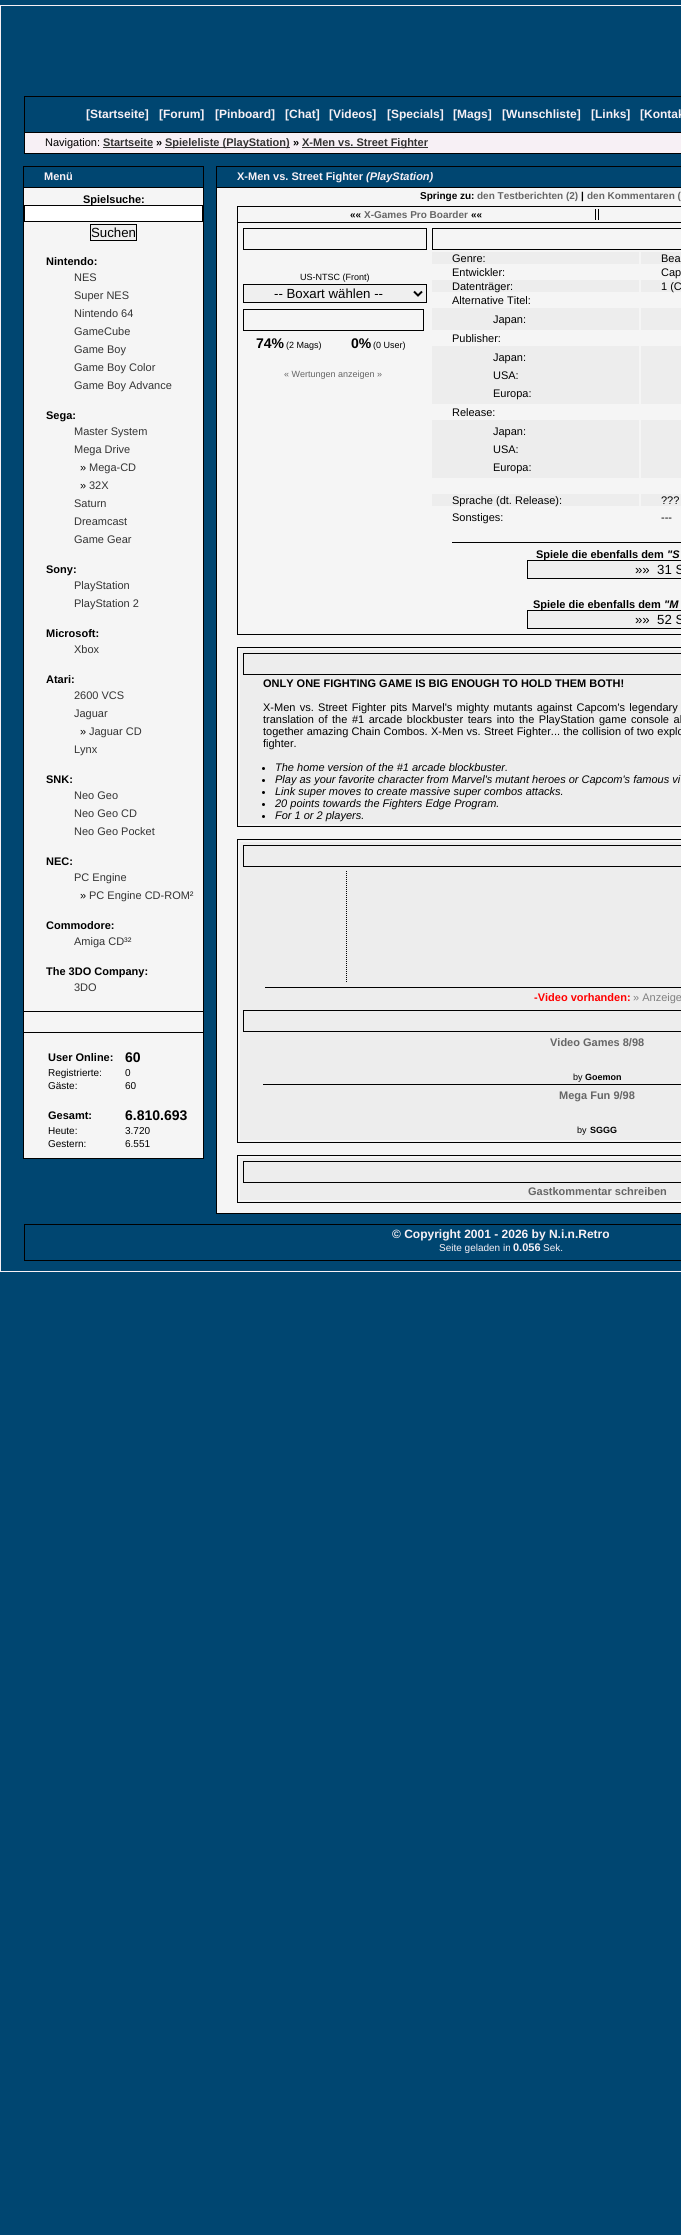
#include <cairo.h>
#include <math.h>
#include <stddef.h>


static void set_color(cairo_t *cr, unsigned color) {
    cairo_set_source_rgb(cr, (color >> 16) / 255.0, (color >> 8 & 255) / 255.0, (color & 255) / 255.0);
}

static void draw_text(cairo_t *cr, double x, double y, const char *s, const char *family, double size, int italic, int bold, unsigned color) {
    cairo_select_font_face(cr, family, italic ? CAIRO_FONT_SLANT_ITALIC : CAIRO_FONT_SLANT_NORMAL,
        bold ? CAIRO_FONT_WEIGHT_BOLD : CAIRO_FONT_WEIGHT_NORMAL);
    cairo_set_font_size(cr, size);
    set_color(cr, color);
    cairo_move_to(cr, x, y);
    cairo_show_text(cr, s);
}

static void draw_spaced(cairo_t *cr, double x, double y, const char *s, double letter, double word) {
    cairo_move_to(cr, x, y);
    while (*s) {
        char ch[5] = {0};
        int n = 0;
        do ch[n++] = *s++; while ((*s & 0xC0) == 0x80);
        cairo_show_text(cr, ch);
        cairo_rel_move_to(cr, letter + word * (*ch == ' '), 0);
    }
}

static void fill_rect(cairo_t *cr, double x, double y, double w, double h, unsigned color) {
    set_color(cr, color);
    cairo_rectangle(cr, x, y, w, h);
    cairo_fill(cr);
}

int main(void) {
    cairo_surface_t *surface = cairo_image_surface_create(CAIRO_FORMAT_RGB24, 681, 2235);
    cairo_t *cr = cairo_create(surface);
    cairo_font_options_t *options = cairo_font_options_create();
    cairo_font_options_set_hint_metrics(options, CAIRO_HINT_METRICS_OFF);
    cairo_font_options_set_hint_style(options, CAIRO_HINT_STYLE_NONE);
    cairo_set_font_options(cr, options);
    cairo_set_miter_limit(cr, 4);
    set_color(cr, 0x004671);
    cairo_paint(cr);
    cairo_rectangle(cr, 0.5, 5.5, 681, 1266);
    set_color(cr, 0xF7F0F5);
    cairo_set_line_width(cr, 1);
    cairo_stroke(cr);
    cairo_rectangle(cr, 24.5, 96.5, 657, 36);
    set_color(cr, 0x000000);
    cairo_stroke(cr);
    draw_text(cr, 86, 118, "[Startseite]", "Liberation Sans", 12, 0, 1, 0xF7F0F5);
    draw_text(cr, 159, 118, "[Forum]", "Liberation Sans", 12, 0, 1, 0xF7F0F5);
    draw_text(cr, 215, 118, "[Pinboard]", "Liberation Sans", 12, 0, 1, 0xF7F0F5);
    draw_text(cr, 285, 118, "[Chat]", "Liberation Sans", 12, 0, 1, 0xF7F0F5);
    draw_text(cr, 329, 118, "[Videos]", "Liberation Sans", 12, 0, 1, 0xF7F0F5);
    draw_text(cr, 387, 118, "[Specials]", "Liberation Sans", 12, 0, 1, 0xF7F0F5);
    draw_text(cr, 453, 118, "[Mags]", "Liberation Sans", 12, 0, 1, 0xF7F0F5);
    draw_text(cr, 502, 118, "[Wunschliste]", "Liberation Sans", 12, 0, 1, 0xF7F0F5);
    draw_text(cr, 591, 118, "[Links]", "Liberation Sans", 12, 0, 1, 0xF7F0F5);
    draw_text(cr, 640, 118, "[Kontak", "Liberation Sans", 12, 0, 1, 0xF7F0F5);
    fill_rect(cr, 25, 133, 656, 20, 0xF7F0F5);
    fill_rect(cr, 24, 153, 657, 1, 0x000000);
    fill_rect(cr, 24, 133, 1, 21, 0x000000);
    draw_text(cr, 45, 146, "Navigation:", "Liberation Sans", 11, 0, 0, 0x000000);
    draw_text(cr, 103, 146, "Startseite", "Liberation Sans", 11, 0, 1, 0x333333);
    fill_rect(cr, 103, 147, 50, 1, 0x333333);
    draw_text(cr, 156, 146, "»", "Liberation Sans", 11, 0, 1, 0x000000);
    fill_rect(cr, 165, 147, 125, 1, 0x333333);
    draw_text(cr, 165, 146, "Spieleliste (PlayStation)", "Liberation Sans", 11, 0, 1, 0x333333);
    draw_text(cr, 293, 146, "»", "Liberation Sans", 11, 0, 1, 0x000000);
    fill_rect(cr, 302, 147, 126, 1, 0x333333);
    draw_text(cr, 302, 146, "X-Men vs. Street Fighter", "Liberation Sans", 11, 0, 1, 0x333333);
    cairo_rectangle(cr, 23.5, 166.5, 180, 21);
    set_color(cr, 0x000000);
    cairo_stroke(cr);
    draw_text(cr, 44, 180, "Menü", "Liberation Sans", 11, 0, 1, 0xF7F0F5);
    cairo_rectangle(cr, 216.5, 166.5, 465, 21);
    set_color(cr, 0x000000);
    cairo_stroke(cr);
    draw_text(cr, 237, 180, "X-Men vs. Street Fighter", "Liberation Sans", 11, 0, 1, 0xF7F0F5);
    draw_text(cr, 366, 180, "(PlayStation)", "Liberation Sans", 11, 1, 1, 0xF7F0F5);
    set_color(cr, 0xF5F5F5);
    cairo_rectangle(cr, 23.5, 187.5, 180, 971);
    cairo_fill_preserve(cr);
    set_color(cr, 0x000000);
    cairo_stroke(cr);
    draw_text(cr, 83, 203, "Spielsuche:", "Liberation Sans", 11, 0, 1, 0x000000);
    set_color(cr, 0xFFFFFF);
    cairo_rectangle(cr, 24.5, 205.5, 178, 16);
    cairo_fill_preserve(cr);
    set_color(cr, 0x000000);
    cairo_stroke(cr);
    set_color(cr, 0xEFEFEF);
    cairo_rectangle(cr, 90.5, 224.5, 46, 16);
    cairo_fill_preserve(cr);
    set_color(cr, 0x000000);
    cairo_stroke(cr);
    draw_text(cr, 91, 237, "Suchen", "Liberation Sans", 13.25, 0, 0, 0x000000);
    draw_text(cr, 46, 265, "Nintendo:", "Liberation Sans", 11, 0, 1, 0x000000);
    draw_text(cr, 74, 281, "NES", "Liberation Sans", 11, 0, 0, 0x333333);
    draw_text(cr, 74, 299, "Super NES", "Liberation Sans", 11, 0, 0, 0x333333);
    draw_text(cr, 74, 317, "Nintendo 64", "Liberation Sans", 11, 0, 0, 0x333333);
    draw_text(cr, 74, 335, "GameCube", "Liberation Sans", 11, 0, 0, 0x333333);
    draw_text(cr, 74, 353, "Game Boy", "Liberation Sans", 11, 0, 0, 0x333333);
    draw_text(cr, 74, 371, "Game Boy Color", "Liberation Sans", 11, 0, 0, 0x333333);
    draw_text(cr, 74, 389, "Game Boy Advance", "Liberation Sans", 11, 0, 0, 0x333333);
    draw_text(cr, 46, 419, "Sega:", "Liberation Sans", 11, 0, 1, 0x000000);
    draw_text(cr, 74, 435, "Master System", "Liberation Sans", 11, 0, 0, 0x333333);
    draw_text(cr, 74, 453, "Mega Drive", "Liberation Sans", 11, 0, 0, 0x333333);
    draw_text(cr, 80, 471, "»", "Liberation Sans", 11, 0, 0, 0x000000);
    draw_text(cr, 89, 471, "Mega-CD", "Liberation Sans", 11, 0, 0, 0x333333);
    draw_text(cr, 80, 489, "»", "Liberation Sans", 11, 0, 0, 0x000000);
    draw_text(cr, 89, 489, "32X", "Liberation Sans", 11, 0, 0, 0x333333);
    draw_text(cr, 74, 507, "Saturn", "Liberation Sans", 11, 0, 0, 0x333333);
    draw_text(cr, 74, 525, "Dreamcast", "Liberation Sans", 11, 0, 0, 0x333333);
    draw_text(cr, 74, 543, "Game Gear", "Liberation Sans", 11, 0, 0, 0x333333);
    draw_text(cr, 46, 573, "Sony:", "Liberation Sans", 11, 0, 1, 0x000000);
    draw_text(cr, 74, 589, "PlayStation", "Liberation Sans", 11, 0, 0, 0x333333);
    draw_text(cr, 74, 607, "PlayStation 2", "Liberation Sans", 11, 0, 0, 0x333333);
    draw_text(cr, 46, 637, "Microsoft:", "Liberation Sans", 11, 0, 1, 0x000000);
    draw_text(cr, 74, 653, "Xbox", "Liberation Sans", 11, 0, 0, 0x333333);
    draw_text(cr, 46, 683, "Atari:", "Liberation Sans", 11, 0, 1, 0x000000);
    draw_text(cr, 74, 699, "2600 VCS", "Liberation Sans", 11, 0, 0, 0x333333);
    draw_text(cr, 74, 717, "Jaguar", "Liberation Sans", 11, 0, 0, 0x333333);
    draw_text(cr, 80, 735, "»", "Liberation Sans", 11, 0, 0, 0x000000);
    draw_text(cr, 89, 735, "Jaguar CD", "Liberation Sans", 11, 0, 0, 0x333333);
    draw_text(cr, 74, 753, "Lynx", "Liberation Sans", 11, 0, 0, 0x333333);
    draw_text(cr, 46, 783, "SNK:", "Liberation Sans", 11, 0, 1, 0x000000);
    draw_text(cr, 74, 799, "Neo Geo", "Liberation Sans", 11, 0, 0, 0x333333);
    draw_text(cr, 74, 817, "Neo Geo CD", "Liberation Sans", 11, 0, 0, 0x333333);
    draw_text(cr, 74, 835, "Neo Geo Pocket", "Liberation Sans", 11, 0, 0, 0x333333);
    draw_text(cr, 46, 865, "NEC:", "Liberation Sans", 11, 0, 1, 0x000000);
    draw_text(cr, 74, 881, "PC Engine", "Liberation Sans", 11, 0, 0, 0x333333);
    draw_text(cr, 80, 899, "»", "Liberation Sans", 11, 0, 0, 0x000000);
    draw_text(cr, 89, 899, "PC Engine CD-ROM²", "Liberation Sans", 11, 0, 0, 0x333333);
    draw_text(cr, 46, 929, "Commodore:", "Liberation Sans", 11, 0, 1, 0x000000);
    draw_text(cr, 74, 945, "Amiga CD³²", "Liberation Sans", 11, 0, 0, 0x333333);
    draw_text(cr, 46, 975, "The 3DO Company:", "Liberation Sans", 11, 0, 1, 0x000000);
    draw_text(cr, 74, 991, "3DO", "Liberation Sans", 11, 0, 0, 0x333333);
    fill_rect(cr, 24, 1011, 179, 1, 0x000000);
    fill_rect(cr, 24, 1032, 179, 1, 0x000000);
    draw_text(cr, 48, 1061, "User Online:", "Liberation Sans", 11, 0, 1, 0x000000);
    draw_text(cr, 125, 1062, "60", "Liberation Sans", 14, 0, 1, 0x000000);
    draw_text(cr, 48, 1076, "Registrierte:", "Liberation Sans", 10, 0, 0, 0x000000);
    draw_text(cr, 125, 1076, "0", "Liberation Sans", 10, 0, 0, 0x000000);
    draw_text(cr, 48, 1089, "Gäste:", "Liberation Sans", 10, 0, 0, 0x000000);
    draw_text(cr, 125, 1089, "60", "Liberation Sans", 10, 0, 0, 0x000000);
    draw_text(cr, 48, 1119, "Gesamt:", "Liberation Sans", 11, 0, 1, 0x000000);
    draw_text(cr, 125, 1120, "6.810.693", "Liberation Sans", 14, 0, 1, 0x000000);
    draw_text(cr, 48, 1134, "Heute:", "Liberation Sans", 10, 0, 0, 0x000000);
    draw_text(cr, 125, 1134, "3.720", "Liberation Sans", 10, 0, 0, 0x000000);
    draw_text(cr, 48, 1147, "Gestern:", "Liberation Sans", 10, 0, 0, 0x000000);
    draw_text(cr, 125, 1147, "6.551", "Liberation Sans", 10, 0, 0, 0x000000);
    set_color(cr, 0xF5F5F5);
    cairo_rectangle(cr, 216.5, 187.5, 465, 1026);
    cairo_fill_preserve(cr);
    set_color(cr, 0x000000);
    cairo_stroke(cr);
    draw_text(cr, 420, 199, "Springe zu:", "Liberation Sans", 10, 0, 1, 0x000000);
    draw_text(cr, 477, 199, "den Testberichten (2)", "Liberation Sans", 10, 0, 1, 0x666666);
    draw_text(cr, 581, 199, "|", "Liberation Sans", 10, 0, 1, 0x000000);
    draw_text(cr, 587, 199, "den Kommentaren (", "Liberation Sans", 10, 0, 1, 0x666666);
    fill_rect(cr, 237, 206, 444, 1, 0x000000);
    fill_rect(cr, 237, 206, 1, 16, 0x000000);
    fill_rect(cr, 595, 209, 1, 11, 0x000000);
    draw_text(cr, 350, 218, "««", "Liberation Sans", 10, 0, 1, 0x000000);
    draw_text(cr, 364, 218, "X-Games Pro Boarder", "Liberation Sans", 10, 0, 1, 0x666666);
    draw_text(cr, 471, 218, "««", "Liberation Sans", 10, 0, 1, 0x000000);
    fill_rect(cr, 598, 209, 1, 11, 0x000000);
    cairo_rectangle(cr, 237.5, 222.5, 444, 412);
    cairo_stroke(cr);
    cairo_rectangle(cr, 243.5, 228.5, 183, 21);
    cairo_stroke(cr);
    draw_text(cr, 300, 280, "US-NTSC (Front)", "Liberation Sans", 9, 0, 0, 0x000000);
    set_color(cr, 0xEFEFEF);
    cairo_rectangle(cr, 243.5, 284.5, 183, 18);
    cairo_fill_preserve(cr);
    set_color(cr, 0x000000);
    cairo_stroke(cr);
    cairo_new_path(cr);
    cairo_move_to(cr, 414, 291.5);
    cairo_line_to(cr, 418, 295.5);
    cairo_line_to(cr, 422, 291.5);
    cairo_set_line_width(cr, 2);
    cairo_stroke(cr);
    draw_text(cr, 274, 298, "-- Boxart wählen --", "Liberation Sans", 13.25, 0, 0, 0x000000);
    cairo_rectangle(cr, 243.5, 309.5, 180, 21);
    cairo_set_line_width(cr, 1);
    cairo_stroke(cr);
    draw_text(cr, 256, 348, "74%", "Liberation Sans", 14, 0, 1, 0x000000);
    draw_text(cr, 286, 348, "(2 Mags)", "Liberation Sans", 9, 0, 0, 0x000000);
    draw_text(cr, 351, 348, "0%", "Liberation Sans", 14, 0, 1, 0x000000);
    draw_text(cr, 373, 348, "(0 User)", "Liberation Sans", 9, 0, 0, 0x000000);
    draw_text(cr, 284, 377, "« Wertungen anzeigen »", "Liberation Sans", 9, 0, 0, 0x666666);
    cairo_rectangle(cr, 432.5, 228.5, 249, 21);
    set_color(cr, 0x000000);
    cairo_stroke(cr);
    fill_rect(cr, 432, 252, 207, 12, 0xEDEDED);
    draw_text(cr, 452, 262, "Genre:", "Liberation Sans", 11, 0, 0, 0x000000);
    fill_rect(cr, 641, 252, 40, 12, 0xEDEDED);
    draw_text(cr, 661, 262, "Bea", "Liberation Sans", 11, 0, 0, 0x000000);
    draw_text(cr, 452, 276, "Entwickler:", "Liberation Sans", 11, 0, 0, 0x000000);
    draw_text(cr, 661, 276, "Cap", "Liberation Sans", 11, 0, 0, 0x000000);
    fill_rect(cr, 432, 280, 207, 12, 0xEDEDED);
    draw_text(cr, 452, 290, "Datenträger:", "Liberation Sans", 11, 0, 0, 0x000000);
    fill_rect(cr, 641, 280, 40, 12, 0xEDEDED);
    draw_text(cr, 661, 290, "1 (C", "Liberation Sans", 11, 0, 0, 0x000000);
    draw_text(cr, 452, 304, "Alternative Titel:", "Liberation Sans", 11, 0, 0, 0x000000);
    fill_rect(cr, 432, 308, 207, 22, 0xEDEDED);
    draw_text(cr, 493, 323, "Japan:", "Liberation Sans", 11, 0, 0, 0x000000);
    fill_rect(cr, 641, 308, 40, 22, 0xEDEDED);
    draw_text(cr, 452, 342, "Publisher:", "Liberation Sans", 11, 0, 0, 0x000000);
    fill_rect(cr, 432, 346, 207, 58, 0xEDEDED);
    draw_text(cr, 493, 361, "Japan:", "Liberation Sans", 11, 0, 0, 0x000000);
    draw_text(cr, 493, 379, "USA:", "Liberation Sans", 11, 0, 0, 0x000000);
    draw_text(cr, 493, 397, "Europa:", "Liberation Sans", 11, 0, 0, 0x000000);
    fill_rect(cr, 641, 346, 40, 58, 0xEDEDED);
    draw_text(cr, 452, 416, "Release:", "Liberation Sans", 11, 0, 0, 0x000000);
    fill_rect(cr, 432, 420, 207, 58, 0xEDEDED);
    draw_text(cr, 493, 435, "Japan:", "Liberation Sans", 11, 0, 0, 0x000000);
    draw_text(cr, 493, 453, "USA:", "Liberation Sans", 11, 0, 0, 0x000000);
    draw_text(cr, 493, 471, "Europa:", "Liberation Sans", 11, 0, 0, 0x000000);
    fill_rect(cr, 641, 420, 40, 58, 0xEDEDED);
    fill_rect(cr, 432, 494, 207, 12, 0xEDEDED);
    draw_text(cr, 452, 504, "Sprache (dt. Release):", "Liberation Sans", 11, 0, 0, 0x000000);
    fill_rect(cr, 641, 494, 40, 12, 0xEDEDED);
    draw_text(cr, 661, 504, "?\077?", "Liberation Sans", 11, 0, 0, 0x000000);
    draw_text(cr, 452, 521, "Sonstiges:", "Liberation Sans", 11, 0, 0, 0x000000);
    draw_text(cr, 661, 521, "---", "Liberation Sans", 11, 0, 0, 0x000000);
    fill_rect(cr, 452, 542, 229, 1, 0x000000);
    draw_text(cr, 536, 558, "Spiele die ebenfalls dem", "Liberation Sans", 11, 0, 1, 0x000000);
    draw_text(cr, 667, 558, "\"S", "Liberation Sans", 11, 1, 1, 0x000000);
    set_color(cr, 0xEFEFEF);
    cairo_rectangle(cr, 527.5, 560.5, 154, 18);
    cairo_fill_preserve(cr);
    set_color(cr, 0x000000);
    cairo_stroke(cr);
    draw_text(cr, 635, 574, "»»  31 S", "Liberation Sans", 13.25, 0, 0, 0x000000);
    draw_text(cr, 533, 608, "Spiele die ebenfalls dem", "Liberation Sans", 11, 0, 1, 0x000000);
    draw_text(cr, 664, 608, "\"M", "Liberation Sans", 11, 1, 1, 0x000000);
    set_color(cr, 0xEFEFEF);
    cairo_rectangle(cr, 527.5, 610.5, 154, 18);
    cairo_fill_preserve(cr);
    set_color(cr, 0x000000);
    cairo_stroke(cr);
    draw_text(cr, 635, 624, "»»  52 S", "Liberation Sans", 13.25, 0, 0, 0x000000);
    cairo_rectangle(cr, 237.5, 647.5, 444, 179);
    cairo_stroke(cr);
    fill_rect(cr, 240, 650, 441, 174, 0xEDEDED);
    cairo_rectangle(cr, 243.5, 653.5, 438, 21);
    set_color(cr, 0x000000);
    cairo_stroke(cr);
    draw_text(cr, 263, 687, "ONLY ONE FIGHTING GAME IS BIG ENOUGH TO HOLD THEM BOTH!", "Liberation Sans", 11, 0, 1, 0x000000);
    cairo_select_font_face(cr, "Liberation Sans", CAIRO_FONT_SLANT_NORMAL, CAIRO_FONT_WEIGHT_NORMAL);
    draw_spaced(cr, 263, 711, "X-Men vs. Street Fighter pits Marvel's mighty mutants against Capcom's legendary", 0, 1.25);
    draw_spaced(cr, 263, 723, "translation of the #1 arcade blockbuster tears into the PlayStation game console al", 0, 1.5);
    draw_spaced(cr, 263, 735, "together amazing Chain Combos. X-Men vs. Street Fighter... the collision of two explo", 0, 0.25);
    draw_text(cr, 263, 747, "fighter.", "Liberation Sans", 11, 0, 0, 0x000000);
    cairo_new_path(cr);
    cairo_arc(cr, 263.5, 768.5, 1.5, 0, 2 * M_PI);
    cairo_fill(cr);
    draw_text(cr, 275, 771, "The home version of the #1 arcade blockbuster.", "Liberation Sans", 11, 1, 0, 0x000000);
    cairo_new_path(cr);
    cairo_arc(cr, 263.5, 780.5, 1.5, 0, 2 * M_PI);
    cairo_fill(cr);
    draw_text(cr, 275, 783, "Play as your favorite character from Marvel's mutant heroes or Capcom's famous vi", "Liberation Sans", 11, 1, 0, 0x000000);
    cairo_new_path(cr);
    cairo_arc(cr, 263.5, 792.5, 1.5, 0, 2 * M_PI);
    cairo_fill(cr);
    draw_text(cr, 275, 795, "Link super moves to create massive super combos attacks.", "Liberation Sans", 11, 1, 0, 0x000000);
    cairo_new_path(cr);
    cairo_arc(cr, 263.5, 804.5, 1.5, 0, 2 * M_PI);
    cairo_fill(cr);
    draw_text(cr, 275, 807, "20 points towards the Fighters Edge Program.", "Liberation Sans", 11, 1, 0, 0x000000);
    cairo_new_path(cr);
    cairo_arc(cr, 263.5, 816.5, 1.5, 0, 2 * M_PI);
    cairo_fill(cr);
    draw_text(cr, 275, 819, "For 1 or 2 players.", "Liberation Sans", 11, 1, 0, 0x000000);
    cairo_rectangle(cr, 237.5, 839.5, 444, 303);
    cairo_stroke(cr);
    fill_rect(cr, 240, 842, 441, 298, 0xEDEDED);
    cairo_rectangle(cr, 243.5, 845.5, 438, 21);
    set_color(cr, 0x000000);
    cairo_stroke(cr);
    cairo_new_path(cr);
    cairo_move_to(cr, 346.5, 871);
    cairo_line_to(cr, 346.5, 983);
    cairo_set_dash(cr, (double[]){1, 1}, 2, 0);
    cairo_stroke(cr);
    fill_rect(cr, 265, 987, 416, 1, 0x000000);
    draw_text(cr, 534, 1001, "-Video vorhanden:", "Liberation Sans", 11, 0, 1, 0xFF0000);
    draw_text(cr, 633, 1001, "» Anzeige", "Liberation Sans", 11, 0, 0, 0x808080);
    cairo_rectangle(cr, 243.5, 1010.5, 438, 21);
    set_color(cr, 0x000000);
    cairo_set_dash(cr, NULL, 0, 0);
    cairo_stroke(cr);
    draw_text(cr, 550, 1046, "Video Games 8/98", "Liberation Sans", 11, 0, 1, 0x666666);
    draw_text(cr, 573, 1080, "by", "Liberation Sans", 9, 0, 0, 0x000000);
    draw_text(cr, 585, 1080, "Goemon", "Liberation Sans", 9, 0, 1, 0x000000);
    fill_rect(cr, 263, 1084, 418, 1, 0x000000);
    draw_text(cr, 559, 1099, "Mega Fun 9/98", "Liberation Sans", 11, 0, 1, 0x666666);
    draw_text(cr, 577, 1133, "by", "Liberation Sans", 9, 0, 0, 0x000000);
    draw_text(cr, 590, 1133, "SGGG", "Liberation Sans", 9, 0, 1, 0x000000);
    cairo_rectangle(cr, 237.5, 1155.5, 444, 47);
    cairo_stroke(cr);
    fill_rect(cr, 240, 1158, 441, 42, 0xEDEDED);
    cairo_rectangle(cr, 243.5, 1161.5, 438, 21);
    set_color(cr, 0x000000);
    cairo_stroke(cr);
    draw_text(cr, 528, 1195, "Gastkommentar schreiben", "Liberation Sans", 11, 0, 1, 0x666666);
    cairo_rectangle(cr, 24.5, 1224.5, 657, 36);
    set_color(cr, 0x000000);
    cairo_stroke(cr);
    draw_text(cr, 392, 1238, "© Copyright 2001 - 2026 by N.i.n.Retro", "Liberation Sans", 12, 0, 1, 0xF7F0F5);
    draw_text(cr, 439, 1251, "Seite geladen in", "Liberation Sans", 10, 0, 0, 0xF7F0F5);
    draw_text(cr, 513, 1251, "0.056", "Liberation Sans", 11, 0, 1, 0xF7F0F5);
    draw_text(cr, 543, 1251, "Sek.", "Liberation Sans", 10, 0, 0, 0xF7F0F5);
    cairo_surface_write_to_png(surface, "output.png");
    cairo_font_options_destroy(options);
    cairo_destroy(cr);
    cairo_surface_destroy(surface);
    return 0;
}
